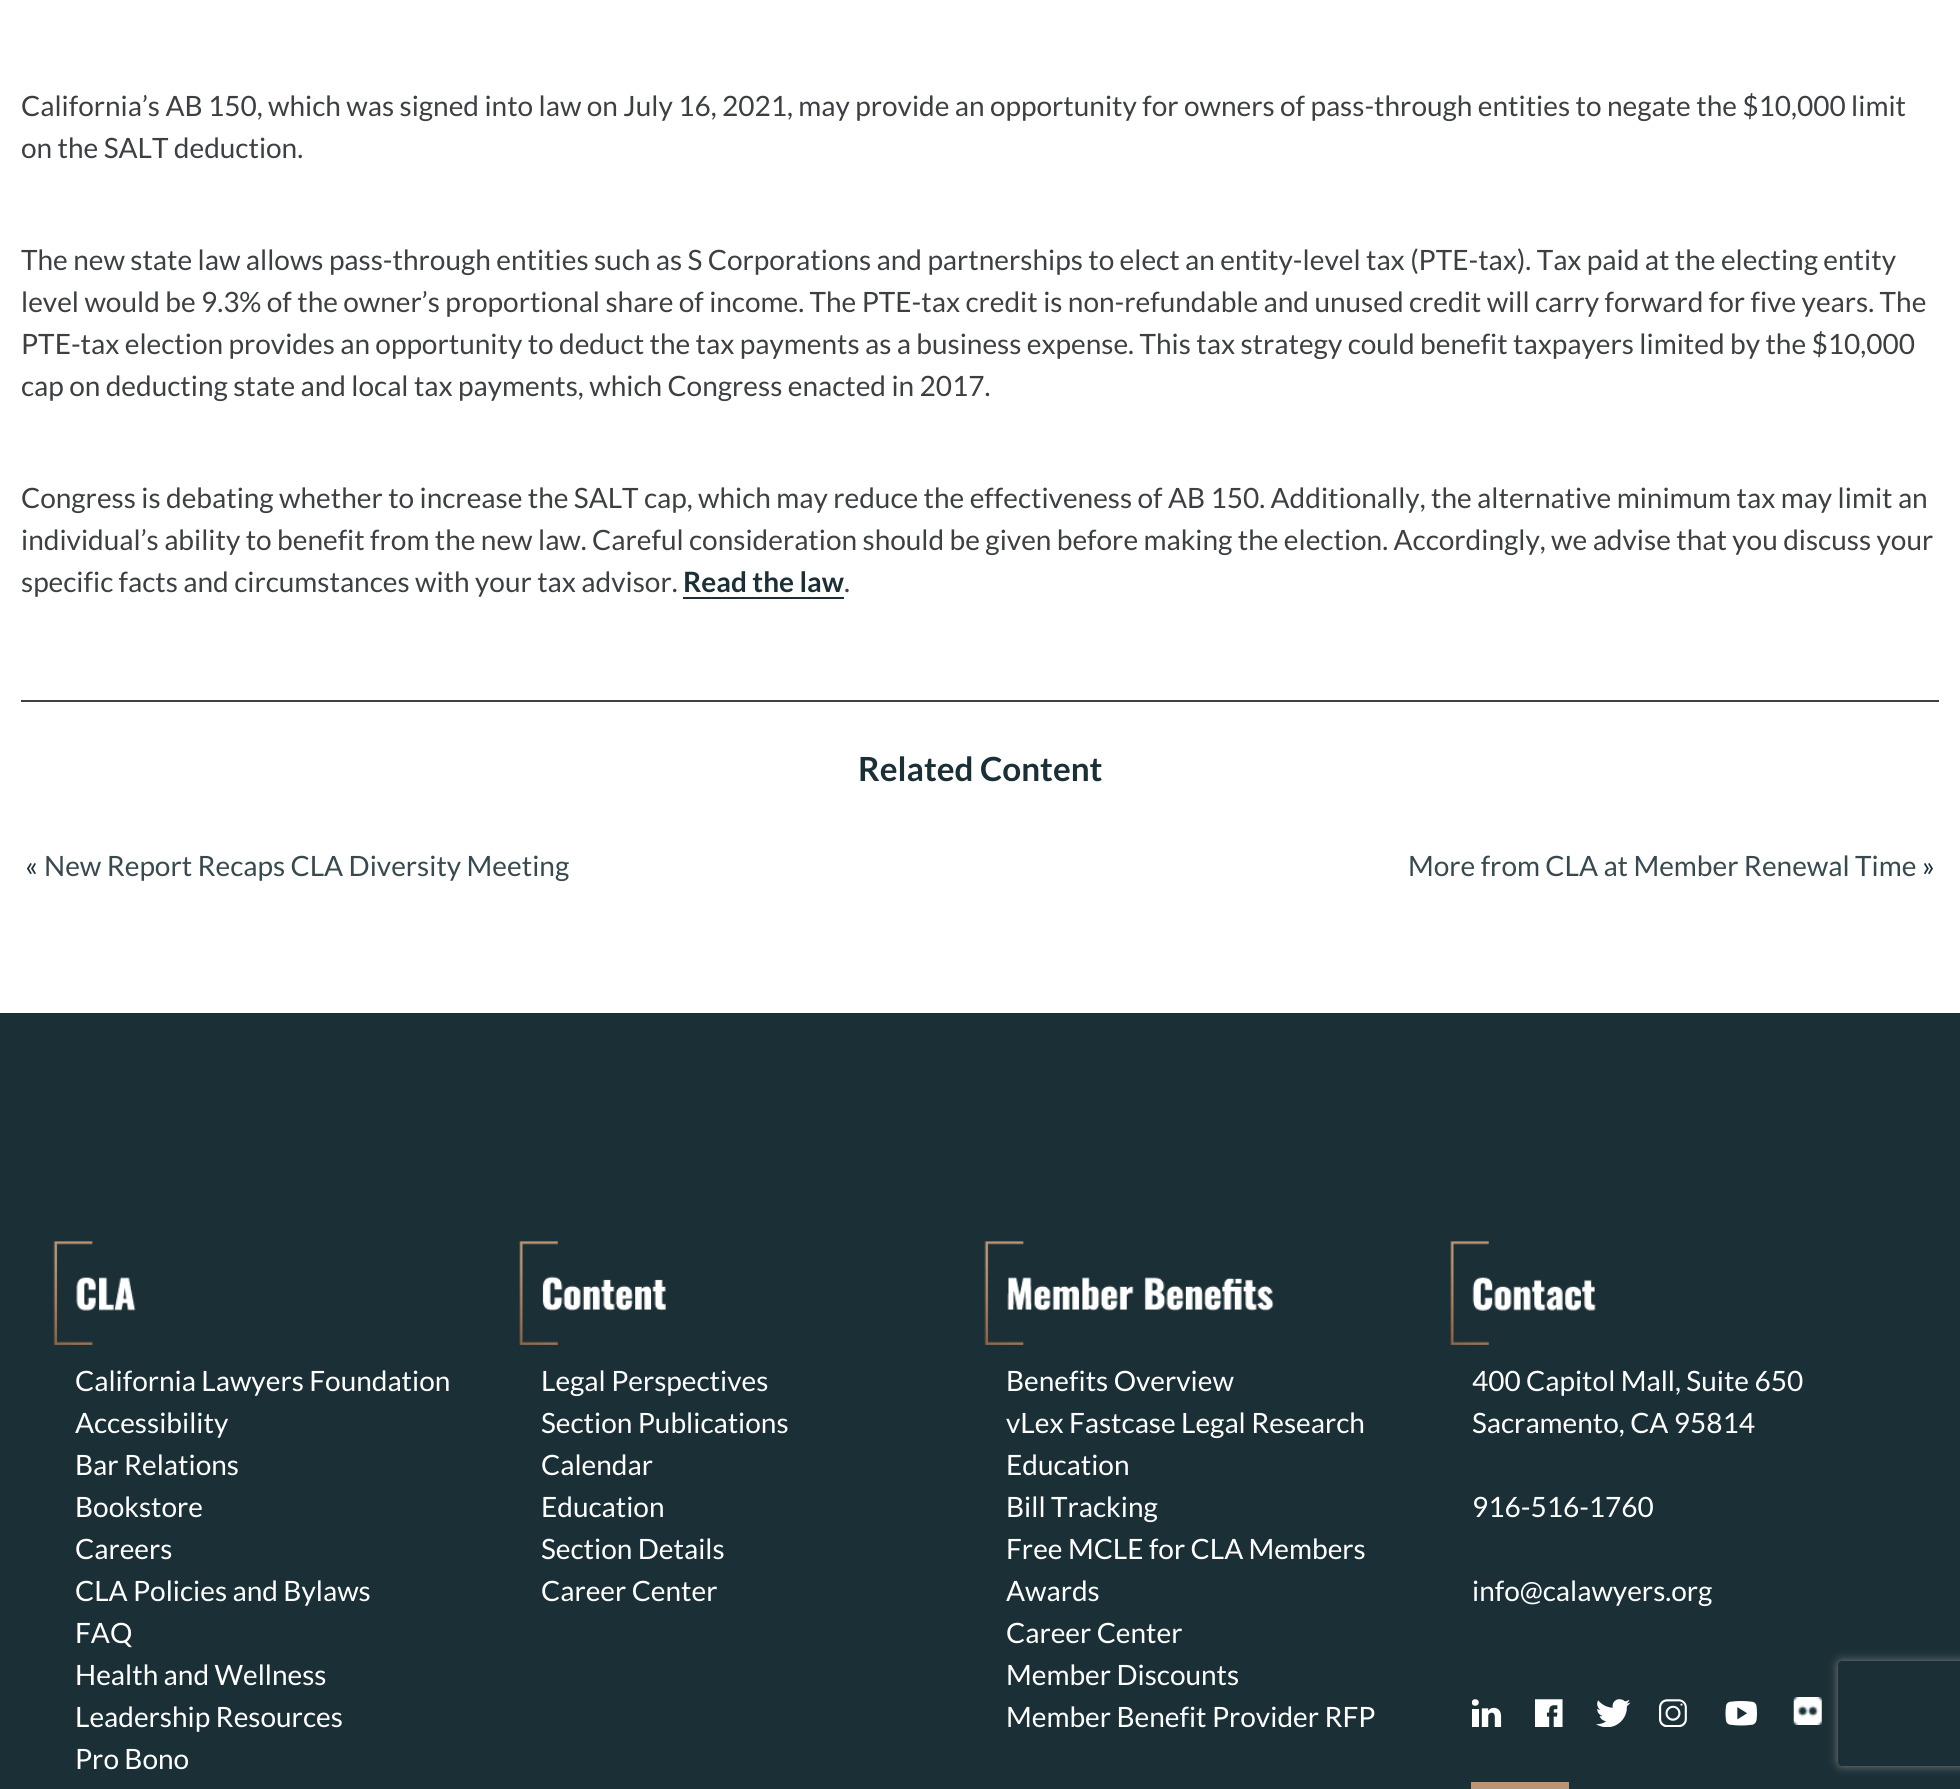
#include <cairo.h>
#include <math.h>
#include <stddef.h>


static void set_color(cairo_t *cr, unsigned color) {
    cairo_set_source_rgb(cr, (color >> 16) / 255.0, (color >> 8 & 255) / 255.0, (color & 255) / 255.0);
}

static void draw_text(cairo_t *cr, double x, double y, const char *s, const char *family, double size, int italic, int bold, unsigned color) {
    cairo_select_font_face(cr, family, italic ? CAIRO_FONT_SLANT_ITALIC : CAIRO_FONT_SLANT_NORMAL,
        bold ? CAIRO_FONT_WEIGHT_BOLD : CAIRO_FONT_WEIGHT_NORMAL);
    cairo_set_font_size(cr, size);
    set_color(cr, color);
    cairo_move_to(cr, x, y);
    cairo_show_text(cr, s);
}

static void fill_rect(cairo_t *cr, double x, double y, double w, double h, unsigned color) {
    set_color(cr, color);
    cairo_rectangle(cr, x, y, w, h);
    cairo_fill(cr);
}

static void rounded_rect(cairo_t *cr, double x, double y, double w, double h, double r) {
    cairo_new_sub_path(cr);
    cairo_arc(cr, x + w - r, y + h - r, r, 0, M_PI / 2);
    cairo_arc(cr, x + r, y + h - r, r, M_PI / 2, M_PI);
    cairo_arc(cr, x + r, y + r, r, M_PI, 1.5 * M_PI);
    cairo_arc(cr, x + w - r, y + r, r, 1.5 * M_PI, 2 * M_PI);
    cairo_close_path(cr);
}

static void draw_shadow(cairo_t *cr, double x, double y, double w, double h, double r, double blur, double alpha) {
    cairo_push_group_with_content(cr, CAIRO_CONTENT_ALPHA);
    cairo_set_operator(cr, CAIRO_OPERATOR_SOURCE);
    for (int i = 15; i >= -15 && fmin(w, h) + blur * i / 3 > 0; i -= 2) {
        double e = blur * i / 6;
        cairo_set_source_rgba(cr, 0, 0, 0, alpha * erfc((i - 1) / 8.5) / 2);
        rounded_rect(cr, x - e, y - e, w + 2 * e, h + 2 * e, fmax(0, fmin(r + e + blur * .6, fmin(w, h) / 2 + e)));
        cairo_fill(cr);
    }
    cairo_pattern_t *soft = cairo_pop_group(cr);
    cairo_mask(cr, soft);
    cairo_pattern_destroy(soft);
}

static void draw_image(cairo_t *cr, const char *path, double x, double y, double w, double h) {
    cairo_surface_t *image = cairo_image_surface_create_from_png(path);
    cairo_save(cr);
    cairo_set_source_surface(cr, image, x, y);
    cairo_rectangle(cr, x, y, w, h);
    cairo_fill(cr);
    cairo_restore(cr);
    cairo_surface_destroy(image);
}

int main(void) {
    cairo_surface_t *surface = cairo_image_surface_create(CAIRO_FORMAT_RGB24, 1960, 1789);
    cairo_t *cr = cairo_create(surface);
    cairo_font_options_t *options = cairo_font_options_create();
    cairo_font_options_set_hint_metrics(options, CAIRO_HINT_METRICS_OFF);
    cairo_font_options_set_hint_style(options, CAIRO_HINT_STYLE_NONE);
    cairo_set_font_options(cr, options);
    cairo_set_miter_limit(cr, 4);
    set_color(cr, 0xFFFFFF);
    cairo_paint(cr);
    draw_text(cr, 21, 116, "California’s AB 150, which was signed into law on July 16, 2021, may provide an opportunity for owners of pass-through entities to negate the $10,000 limit", "Lato", 28, 0, 0, 0x3C4043);
    draw_text(cr, 21, 158, "on the SALT deduction.", "Lato", 28, 0, 0, 0x3C4043);
    draw_text(cr, 21, 270, "The new state law allows pass-through entities such as S Corporations and partnerships to elect an entity-level tax (PTE-tax). Tax paid at the electing entity", "Lato", 28, 0, 0, 0x3C4043);
    draw_text(cr, 21, 312, "level would be 9.3% of the owner’s proportional share of income. The PTE-tax credit is non-refundable and unused credit will carry forward for five years. The", "Lato", 28, 0, 0, 0x3C4043);
    draw_text(cr, 21, 354, "PTE-tax election provides an opportunity to deduct the tax payments as a business expense. This tax strategy could benefit taxpayers limited by the $10,000", "Lato", 28, 0, 0, 0x3C4043);
    draw_text(cr, 21, 396, "cap on deducting state and local tax payments, which Congress enacted in 2017.", "Lato", 28, 0, 0, 0x3C4043);
    draw_text(cr, 21, 508, "Congress is debating whether to increase the SALT cap, which may reduce the effectiveness of AB 150. Additionally, the alternative minimum tax may limit an", "Lato", 28, 0, 0, 0x3C4043);
    draw_text(cr, 21, 550, "individual’s ability to benefit from the new law. Careful consideration should be given before making the election. Accordingly, we advise that you discuss your", "Lato", 28, 0, 0, 0x3C4043);
    draw_text(cr, 21, 592, "specific facts and circumstances with your tax advisor.", "Lato", 28, 0, 0, 0x3C4043);
    draw_text(cr, 683, 592, "Read the law", "Lato", 28, 0, 1, 0x1B3036);
    fill_rect(cr, 683, 597, 161, 2, 0x1B3036);
    draw_text(cr, 844, 592, ".", "Lato", 28, 0, 0, 0x3C4043);
    fill_rect(cr, 21, 700, 1918, 2, 0x3C4043);
    draw_text(cr, 858, 781, "Related Content", "Lato", 33.25, 0, 1, 0x1B3036);
    draw_text(cr, 25, 876, "«", "Lato", 28, 0, 0, 0x1B3036);
    draw_text(cr, 44, 876, "New Report Recaps CLA Diversity Meeting", "Lato", 28, 0, 0, 0x384A4F);
    draw_text(cr, 1408, 876, "More from CLA at Member Renewal Time", "Lato", 28, 0, 0, 0x384A4F);
    draw_text(cr, 1922, 876, "»", "Lato", 28, 0, 0, 0x1B3036);
    fill_rect(cr, 0, 1013, 1960, 776, 0x1B3036);
    draw_image(cr, "assets/img1.png", 53, 1241, 83, 104);
    draw_text(cr, 75, 1391, "California Lawyers Foundation", "Lato", 28, 0, 0, 0xFFFFFF);
    draw_text(cr, 75, 1433, "Accessibility", "Lato", 28, 0, 0, 0xFFFFFF);
    draw_text(cr, 75, 1475, "Bar Relations", "Lato", 28, 0, 0, 0xFFFFFF);
    draw_text(cr, 75, 1517, "Bookstore", "Lato", 28, 0, 0, 0xFFFFFF);
    draw_text(cr, 75, 1559, "Careers", "Lato", 28, 0, 0, 0xFFFFFF);
    draw_text(cr, 75, 1601, "CLA Policies and Bylaws", "Lato", 28, 0, 0, 0xFFFFFF);
    draw_text(cr, 75, 1643, "FAQ", "Lato", 28, 0, 0, 0xFFFFFF);
    draw_text(cr, 75, 1685, "Health and Wellness", "Lato", 28, 0, 0, 0xFFFFFF);
    draw_text(cr, 75, 1727, "Leadership Resources", "Lato", 28, 0, 0, 0xFFFFFF);
    draw_text(cr, 75, 1769, "Pro Bono", "Lato", 28, 0, 0, 0xFFFFFF);
    draw_image(cr, "assets/img2.png", 519, 1241, 147, 104);
    draw_text(cr, 541, 1391, "Legal Perspectives", "Lato", 28, 0, 0, 0xFFFFFF);
    draw_text(cr, 541, 1433, "Section Publications", "Lato", 28, 0, 0, 0xFFFFFF);
    draw_text(cr, 541, 1475, "Calendar", "Lato", 28, 0, 0, 0xFFFFFF);
    draw_text(cr, 541, 1517, "Education", "Lato", 28, 0, 0, 0xFFFFFF);
    draw_text(cr, 541, 1559, "Section Details", "Lato", 28, 0, 0, 0xFFFFFF);
    draw_text(cr, 541, 1601, "Career Center", "Lato", 28, 0, 0, 0xFFFFFF);
    draw_image(cr, "assets/img3.png", 984, 1241, 290, 104);
    draw_text(cr, 1006, 1391, "Benefits Overview", "Lato", 28, 0, 0, 0xFFFFFF);
    draw_text(cr, 1006, 1433, "vLex Fastcase Legal Research", "Lato", 28, 0, 0, 0xFFFFFF);
    draw_text(cr, 1006, 1475, "Education", "Lato", 28, 0, 0, 0xFFFFFF);
    draw_text(cr, 1006, 1517, "Bill Tracking", "Lato", 28, 0, 0, 0xFFFFFF);
    draw_text(cr, 1006, 1559, "Free MCLE for CLA Members", "Lato", 28, 0, 0, 0xFFFFFF);
    draw_text(cr, 1006, 1601, "Awards", "Lato", 28, 0, 0, 0xFFFFFF);
    draw_text(cr, 1006, 1643, "Career Center", "Lato", 28, 0, 0, 0xFFFFFF);
    draw_text(cr, 1006, 1685, "Member Discounts", "Lato", 28, 0, 0, 0xFFFFFF);
    draw_text(cr, 1006, 1727, "Member Benefit Provider RFP", "Lato", 28, 0, 0, 0xFFFFFF);
    draw_image(cr, "assets/img4.png", 1450, 1241, 146, 104);
    draw_text(cr, 1472, 1391, "400 Capitol Mall, Suite 650", "Lato", 28, 0, 0, 0xFFFFFF);
    draw_text(cr, 1472, 1433, "Sacramento, CA 95814", "Lato", 28, 0, 0, 0xFFFFFF);
    draw_text(cr, 1472, 1517, "916-516-1760", "Lato", 28, 0, 0, 0xFFFFFF);
    draw_text(cr, 1472, 1601, "info@calawyers.org", "Lato", 28, 0, 0, 0xFFFFFF);
    draw_image(cr, "assets/img5.png", 1472, 1699, 30, 28);
    draw_image(cr, "assets/img6.png", 1535, 1699, 28, 28);
    draw_image(cr, "assets/img7.png", 1596, 1699, 35, 28);
    draw_image(cr, "assets/img8.png", 1659, 1699, 28, 28);
    draw_image(cr, "assets/img9.png", 1725, 1701, 32, 25);
    draw_image(cr, "assets/img10.png", 1793, 1697, 29, 28);
    fill_rect(cr, 1471, 1782, 98, 7, 0xBB9375);
    cairo_save(cr);
    cairo_set_fill_rule(cr, CAIRO_FILL_RULE_EVEN_ODD);
    cairo_new_path(cr);
    cairo_move_to(cr, 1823, 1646);
    cairo_line_to(cr, 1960, 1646);
    cairo_line_to(cr, 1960, 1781);
    cairo_line_to(cr, 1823, 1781);
    cairo_close_path(cr);
    cairo_move_to(cr, 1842, 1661);
    cairo_line_to(cr, 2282, 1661);
    cairo_curve_to(cr, 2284, 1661, 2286, 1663, 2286, 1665);
    cairo_line_to(cr, 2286, 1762);
    cairo_curve_to(cr, 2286, 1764, 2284, 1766, 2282, 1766);
    cairo_line_to(cr, 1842, 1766);
    cairo_curve_to(cr, 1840, 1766, 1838, 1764, 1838, 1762);
    cairo_line_to(cr, 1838, 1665);
    cairo_curve_to(cr, 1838, 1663, 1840, 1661, 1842, 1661);
    cairo_close_path(cr);
    cairo_clip(cr);
    set_color(cr, 0x808080);
    draw_shadow(cr, 1838, 1661, 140, 105, 4, 4.5, 1);
    cairo_restore(cr);
    cairo_surface_write_to_png(surface, "output.png");
    cairo_font_options_destroy(options);
    cairo_destroy(cr);
    cairo_surface_destroy(surface);
    return 0;
}
